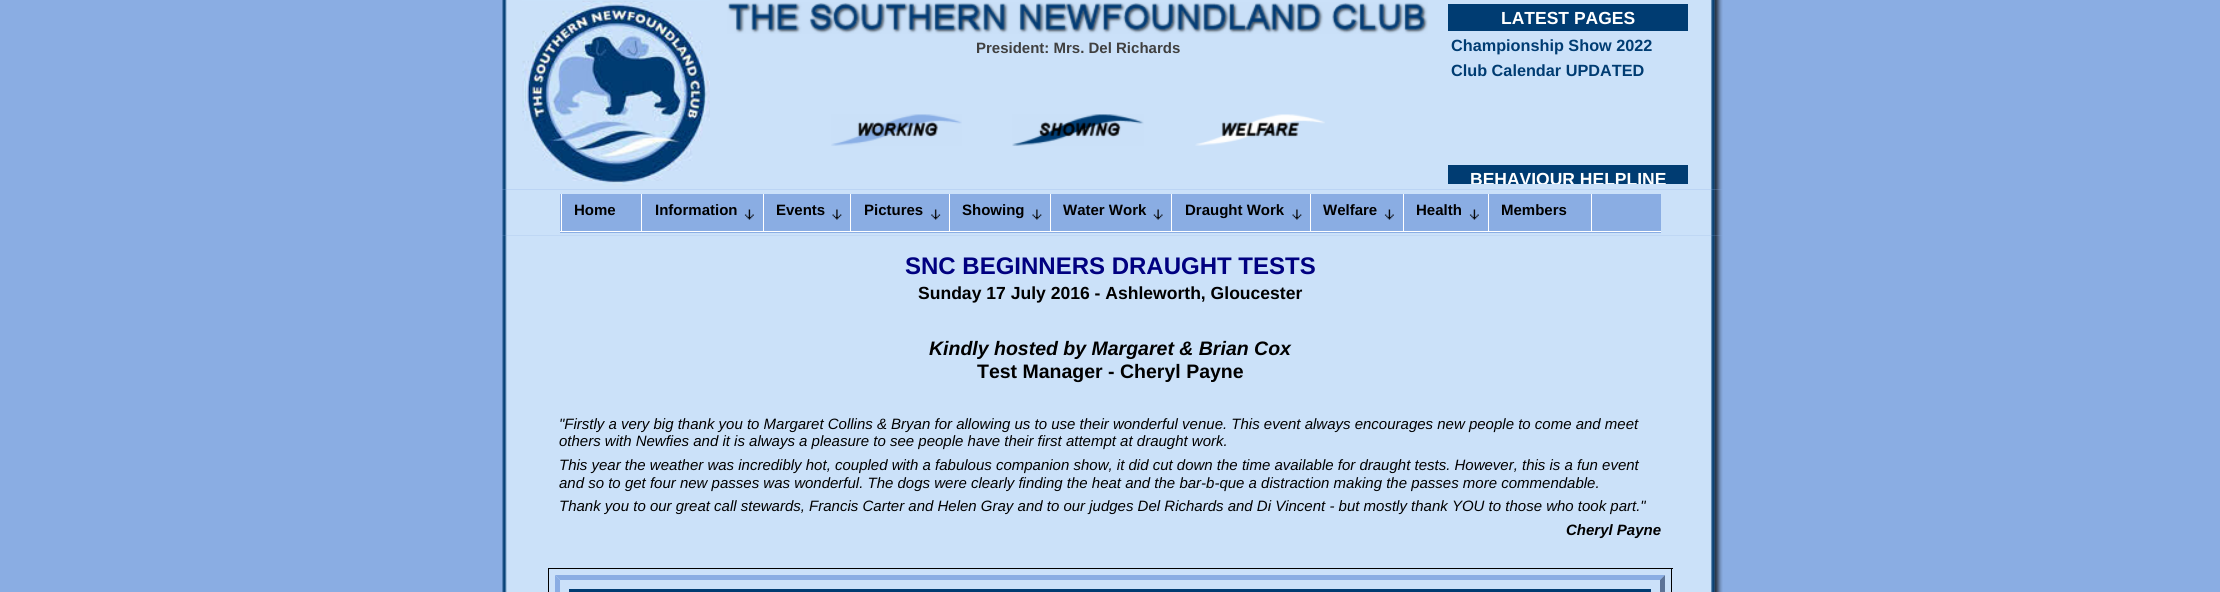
#include <cairo.h>
#include <math.h>
#include <stddef.h>


static void set_color(cairo_t *cr, unsigned color) {
    cairo_set_source_rgb(cr, (color >> 16) / 255.0, (color >> 8 & 255) / 255.0, (color & 255) / 255.0);
}

static void draw_text(cairo_t *cr, double x, double y, const char *s, const char *family, double size, int italic, int bold, unsigned color) {
    cairo_select_font_face(cr, family, italic ? CAIRO_FONT_SLANT_ITALIC : CAIRO_FONT_SLANT_NORMAL,
        bold ? CAIRO_FONT_WEIGHT_BOLD : CAIRO_FONT_WEIGHT_NORMAL);
    cairo_set_font_size(cr, size);
    set_color(cr, color);
    cairo_move_to(cr, x, y);
    cairo_show_text(cr, s);
}

static void fill_rect(cairo_t *cr, double x, double y, double w, double h, unsigned color) {
    set_color(cr, color);
    cairo_rectangle(cr, x, y, w, h);
    cairo_fill(cr);
}

static void draw_image(cairo_t *cr, const char *path, double x, double y, double w, double h) {
    cairo_surface_t *image = cairo_image_surface_create_from_png(path);
    cairo_save(cr);
    cairo_set_source_surface(cr, image, x, y);
    cairo_rectangle(cr, x, y, w, h);
    cairo_fill(cr);
    cairo_restore(cr);
    cairo_surface_destroy(image);
}

int main(void) {
    cairo_surface_t *surface = cairo_image_surface_create(CAIRO_FORMAT_RGB24, 2220, 592);
    cairo_t *cr = cairo_create(surface);
    cairo_font_options_t *options = cairo_font_options_create();
    cairo_font_options_set_hint_metrics(options, CAIRO_HINT_METRICS_OFF);
    cairo_font_options_set_hint_style(options, CAIRO_HINT_STYLE_NONE);
    cairo_set_font_options(cr, options);
    cairo_set_miter_limit(cr, 4);
    set_color(cr, 0x8AADE3);
    cairo_paint(cr);
    draw_image(cr, "assets/img1.png", 502, 0, 1221, 190);
    draw_image(cr, "assets/img2.png", 522, 0, 188, 186);
    draw_image(cr, "assets/img3.png", 727, 2, 701, 32);
    draw_text(cr, 976, 53, "President: Mrs. Del Richards", "Liberation Sans", 15, 0, 1, 0x404040);
    fill_rect(cr, 1448, 4, 240, 27, 0x003C72);
    draw_text(cr, 1501, 24, "LATEST PAGES", "Liberation Sans", 17.5, 0, 1, 0xFFFFFF);
    draw_text(cr, 1451, 51, "Championship Show 2022", "Liberation Sans", 16.25, 0, 1, 0x003C72);
    draw_text(cr, 1451, 76, "Club Calendar UPDATED", "Liberation Sans", 16.25, 0, 1, 0x003C72);
    fill_rect(cr, 1448, 165, 240, 19, 0x003C72);
    cairo_save(cr);
    cairo_rectangle(cr, 1443, 1, 250, 183);
    cairo_clip(cr);
    draw_text(cr, 1470, 185, "BEHAVIOUR HELPLINE", "Liberation Sans", 17.5, 0, 1, 0xFFFFFF);
    cairo_restore(cr);
    draw_image(cr, "assets/img4.png", 831, 114, 131, 32);
    draw_image(cr, "assets/img5.png", 1012, 114, 132, 32);
    draw_image(cr, "assets/img6.png", 1195, 114, 130, 32);
    draw_image(cr, "assets/img7.png", 502, 189, 1221, 47);
    fill_rect(cr, 560, 194, 1101, 39, 0x8AADE3);
    fill_rect(cr, 560, 231, 1101, 1, 0xFFFFFF);
    fill_rect(cr, 641, 194, 1, 37, 0xFFFFFF);
    fill_rect(cr, 561, 194, 1, 37, 0xFFFFFF);
    draw_text(cr, 574, 215, "Home", "Liberation Sans", 15, 0, 1, 0x000000);
    fill_rect(cr, 763, 194, 1, 37, 0xFFFFFF);
    draw_image(cr, "assets/img8.png", 744, 209, 10, 11);
    draw_text(cr, 655, 215, "Information", "Liberation Sans", 15, 0, 1, 0x000000);
    fill_rect(cr, 850, 194, 1, 37, 0xFFFFFF);
    draw_image(cr, "assets/img9.png", 832, 209, 10, 11);
    draw_text(cr, 776, 215, "Events", "Liberation Sans", 15, 0, 1, 0x000000);
    fill_rect(cr, 949, 194, 1, 37, 0xFFFFFF);
    draw_image(cr, "assets/img10.png", 931, 209, 10, 11);
    draw_text(cr, 864, 215, "Pictures", "Liberation Sans", 15, 0, 1, 0x000000);
    fill_rect(cr, 1050, 194, 1, 37, 0xFFFFFF);
    draw_image(cr, "assets/img11.png", 1032, 209, 10, 11);
    draw_text(cr, 962, 215, "Showing", "Liberation Sans", 15, 0, 1, 0x000000);
    fill_rect(cr, 1171, 194, 1, 37, 0xFFFFFF);
    draw_image(cr, "assets/img12.png", 1153, 209, 10, 11);
    draw_text(cr, 1063, 215, "Water Work", "Liberation Sans", 15, 0, 1, 0x000000);
    fill_rect(cr, 1310, 194, 1, 37, 0xFFFFFF);
    draw_image(cr, "assets/img9.png", 1292, 209, 10, 11);
    draw_text(cr, 1185, 215, "Draught Work", "Liberation Sans", 15, 0, 1, 0x000000);
    fill_rect(cr, 1403, 194, 1, 37, 0xFFFFFF);
    draw_image(cr, "assets/img8.png", 1384, 209, 10, 11);
    draw_text(cr, 1323, 215, "Welfare", "Liberation Sans", 15, 0, 1, 0x000000);
    fill_rect(cr, 1488, 194, 1, 37, 0xFFFFFF);
    draw_image(cr, "assets/img8.png", 1469, 209, 10, 11);
    draw_text(cr, 1416, 215, "Health", "Liberation Sans", 15, 0, 1, 0x000000);
    fill_rect(cr, 1591, 194, 1, 37, 0xFFFFFF);
    draw_text(cr, 1501, 215, "Members", "Liberation Sans", 15, 0, 1, 0x000000);
    draw_image(cr, "assets/img13.png", 502, 235, 1221, 357);
    draw_text(cr, 905, 274, "SNC BEGINNERS DRAUGHT TESTS", "Liberation Sans", 24, 0, 1, 0x000080);
    draw_text(cr, 918, 299, "Sunday 17 July 2016 - Ashleworth, Gloucester", "Liberation Sans", 17.55, 0, 1, 0x000000);
    draw_text(cr, 929, 355, "Kindly hosted by Margaret & Brian Cox", "Liberation Sans", 19.5, 1, 1, 0x000000);
    draw_text(cr, 977, 378, "Test Manager - Cheryl Payne", "Liberation Sans", 19.5, 0, 1, 0x000000);
    draw_text(cr, 559, 429, "\"Firstly a very big thank you to Margaret Collins & Bryan for allowing us to use their wonderful venue. This event always encourages new people to come and meet", "Liberation Sans", 15, 1, 0, 0x000000);
    draw_text(cr, 559, 446, "others with Newfies and it is always a pleasure to see people have their first attempt at draught work.", "Liberation Sans", 15, 1, 0, 0x000000);
    draw_text(cr, 559, 470, "This year the weather was incredibly hot, coupled with a fabulous companion show, it did cut down the time available for draught tests. However, this is a fun event", "Liberation Sans", 15, 1, 0, 0x000000);
    draw_text(cr, 559, 488, "and so to get four new passes was wonderful. The dogs were clearly finding the heat and the bar-b-que a distraction making the passes more commendable.", "Liberation Sans", 15, 1, 0, 0x000000);
    draw_text(cr, 559, 511, "Thank you to our great call stewards, Francis Carter and Helen Gray and to our judges Del Richards and Di Vincent - but mostly thank YOU to those who took part.\"", "Liberation Sans", 15, 1, 0, 0x000000);
    draw_text(cr, 1566, 535, "Cheryl Payne", "Liberation Sans", 15, 1, 1, 0x000000);
    fill_rect(cr, 548, 568, 1125, 1, 0x000000);
    fill_rect(cr, 1671, 568, 1, 24, 0x000000);
    fill_rect(cr, 548, 568, 1, 24, 0x000000);
    set_color(cr, 0x8AADE3);
    cairo_new_path(cr);
    cairo_move_to(cr, 555, 575);
    cairo_line_to(cr, 1665, 575);
    cairo_line_to(cr, 1660, 580);
    cairo_line_to(cr, 560, 580);
    cairo_close_path(cr);
    cairo_fill(cr);
    set_color(cr, 0x5C7397);
    cairo_new_path(cr);
    cairo_move_to(cr, 1665, 575);
    cairo_line_to(cr, 1665, 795);
    cairo_line_to(cr, 1660, 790);
    cairo_line_to(cr, 1660, 580);
    cairo_close_path(cr);
    cairo_fill(cr);
    set_color(cr, 0x8AADE3);
    cairo_new_path(cr);
    cairo_move_to(cr, 555, 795);
    cairo_line_to(cr, 555, 575);
    cairo_line_to(cr, 560, 580);
    cairo_line_to(cr, 560, 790);
    cairo_close_path(cr);
    cairo_fill(cr);
    fill_rect(cr, 569, 589, 1082, 3, 0x003C72);
    cairo_surface_write_to_png(surface, "output.png");
    cairo_font_options_destroy(options);
    cairo_destroy(cr);
    cairo_surface_destroy(surface);
    return 0;
}
